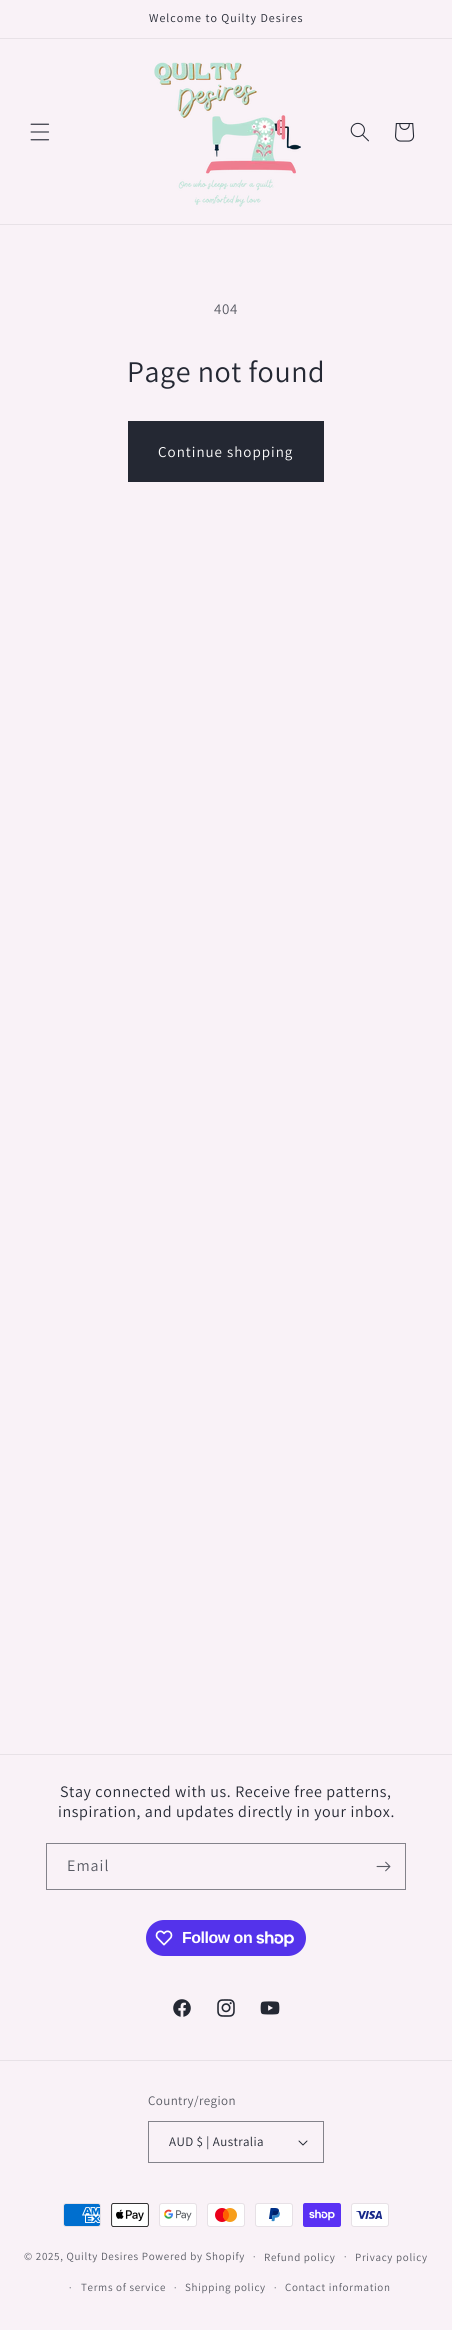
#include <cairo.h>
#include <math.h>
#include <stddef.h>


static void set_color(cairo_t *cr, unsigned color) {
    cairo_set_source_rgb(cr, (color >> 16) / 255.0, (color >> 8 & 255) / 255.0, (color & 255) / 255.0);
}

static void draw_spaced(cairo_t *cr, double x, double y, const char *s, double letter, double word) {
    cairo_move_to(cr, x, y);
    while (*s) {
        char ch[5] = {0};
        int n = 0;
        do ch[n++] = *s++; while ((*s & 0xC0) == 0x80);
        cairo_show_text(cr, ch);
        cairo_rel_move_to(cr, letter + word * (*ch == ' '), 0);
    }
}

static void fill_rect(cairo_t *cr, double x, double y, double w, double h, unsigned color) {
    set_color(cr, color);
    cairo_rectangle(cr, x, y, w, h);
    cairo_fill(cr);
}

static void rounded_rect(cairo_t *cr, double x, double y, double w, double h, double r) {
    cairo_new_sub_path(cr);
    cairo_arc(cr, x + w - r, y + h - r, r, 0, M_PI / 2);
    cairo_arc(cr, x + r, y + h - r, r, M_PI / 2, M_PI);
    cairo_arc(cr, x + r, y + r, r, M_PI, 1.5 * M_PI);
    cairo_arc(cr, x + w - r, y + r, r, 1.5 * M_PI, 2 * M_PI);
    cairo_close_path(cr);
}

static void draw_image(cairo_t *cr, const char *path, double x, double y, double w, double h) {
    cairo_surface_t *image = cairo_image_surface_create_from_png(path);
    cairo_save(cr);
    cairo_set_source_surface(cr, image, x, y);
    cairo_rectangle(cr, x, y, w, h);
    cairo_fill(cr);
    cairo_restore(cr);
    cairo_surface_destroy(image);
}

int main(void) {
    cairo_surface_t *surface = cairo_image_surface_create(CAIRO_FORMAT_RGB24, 452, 2330);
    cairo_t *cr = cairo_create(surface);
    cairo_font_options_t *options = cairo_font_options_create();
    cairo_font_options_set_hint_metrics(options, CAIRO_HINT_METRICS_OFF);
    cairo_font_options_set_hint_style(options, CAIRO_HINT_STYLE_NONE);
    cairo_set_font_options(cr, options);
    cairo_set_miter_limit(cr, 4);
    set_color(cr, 0xF9F2F7);
    cairo_paint(cr);
    fill_rect(cr, 0, 38, 452, 1, 0xE8E2E7);
    cairo_select_font_face(cr, "Assistant", CAIRO_FONT_SLANT_NORMAL, CAIRO_FONT_WEIGHT_NORMAL);
    cairo_set_font_size(cr, 12);
    set_color(cr, 0x242833);
    draw_spaced(cr, 149, 22, "Welcome to Quilty Desires", 1, 0);
    fill_rect(cr, 0, 224, 452, 1, 0xE8E2E7);
    draw_image(cr, "assets/img1.png", 30, 123, 20, 18);
    draw_image(cr, "assets/img2.png", 154, 62, 147, 145);
    draw_image(cr, "assets/img3.png", 350, 122, 19, 20);
    draw_image(cr, "assets/img4.png", 395, 123, 20, 19);
    cairo_set_font_size(cr, 15);
    set_color(cr, 0x595B64);
    draw_spaced(cr, 214, 314, "404", 0.6, 0);
    cairo_set_font_size(cr, 30);
    set_color(cr, 0x242833);
    draw_spaced(cr, 127, 382, "Page not found", 0.6, 0);
    fill_rect(cr, 128, 421, 196, 61, 0x242833);
    cairo_set_font_size(cr, 15);
    set_color(cr, 0xFFFFFF);
    draw_spaced(cr, 158, 457, "Continue shopping", 1, 0);
    fill_rect(cr, 0, 1754, 452, 1, 0xE8E2E7);
    cairo_set_font_size(cr, 16);
    set_color(cr, 0x242833);
    draw_spaced(cr, 60, 1797, "Stay connected with us. Receive free patterns,", 0.6, 0);
    draw_spaced(cr, 58, 1817, "inspiration, and updates directly in your inbox.", 0.6, 0);
    cairo_rectangle(cr, 46.5, 1843.5, 359, 46);
    set_color(cr, 0x84838B);
    cairo_set_line_width(cr, 1);
    cairo_stroke(cr);
    set_color(cr, 0x595B64);
    draw_spaced(cr, 67, 1871, "Email", 1, 0);
    draw_image(cr, "assets/img5.png", 376, 1861, 15, 11);
    set_color(cr, 0x5433EB);
    rounded_rect(cr, 146, 1920, 160, 36, 18);
    cairo_fill(cr);
    draw_image(cr, "assets/img6.png", 155, 1930, 18, 16);
    cairo_select_font_face(cr, "Liberation Sans", CAIRO_FONT_SLANT_NORMAL, CAIRO_FONT_WEIGHT_BOLD);
    set_color(cr, 0xFFFFFF);
    draw_spaced(cr, 182, 1943, "Follow on", -0.5, 0);
    draw_image(cr, "assets/img7.png", 256, 1931, 38, 16);
    draw_image(cr, "assets/img8.png", 173, 1999, 18, 18);
    draw_image(cr, "assets/img9.png", 217, 1999, 18, 18);
    draw_image(cr, "assets/img10.png", 260, 2001, 20, 14);
    fill_rect(cr, 0, 2060, 452, 1, 0xE8E2E7);
    cairo_select_font_face(cr, "Assistant", CAIRO_FONT_SLANT_NORMAL, CAIRO_FONT_WEIGHT_NORMAL);
    cairo_set_font_size(cr, 13);
    set_color(cr, 0x595B64);
    draw_spaced(cr, 148, 2105, "Country/region", 0.4, 0);
    draw_image(cr, "assets/img11.png", 298, 2140, 10, 6);
    cairo_rectangle(cr, 148.5, 2121.5, 175, 41);
    set_color(cr, 0x84838B);
    cairo_stroke(cr);
    set_color(cr, 0x242833);
    draw_spaced(cr, 169, 2146, "AUD $ | Australia", 0.4, 0);
    draw_image(cr, "assets/img12.png", 63, 2203, 38, 24);
    draw_image(cr, "assets/img13.png", 111, 2203, 38, 24);
    draw_image(cr, "assets/img14.png", 159, 2203, 38, 24);
    draw_image(cr, "assets/img15.png", 207, 2203, 38, 24);
    draw_image(cr, "assets/img16.png", 255, 2203, 38, 24);
    draw_image(cr, "assets/img17.png", 303, 2203, 38, 24);
    draw_image(cr, "assets/img18.png", 351, 2203, 38, 24);
    cairo_set_font_size(cr, 11);
    set_color(cr, 0x595B64);
    draw_spaced(cr, 24, 2260, "© 2025, Quilty Desires Powered by Shopify", 0.7, 0);
    cairo_set_font_size(cr, 10);
    draw_spaced(cr, 253, 2260, "·", 0.7, 0);
    cairo_set_font_size(cr, 11);
    draw_spaced(cr, 264, 2261, "Refund policy", 0.7, 0);
    cairo_set_font_size(cr, 10);
    draw_spaced(cr, 344, 2260, "·", 0.7, 0);
    cairo_set_font_size(cr, 11);
    draw_spaced(cr, 355, 2261, "Privacy policy", 0.7, 0);
    cairo_set_font_size(cr, 10);
    draw_spaced(cr, 69, 2291, "·", 0.7, 0);
    cairo_set_font_size(cr, 11);
    draw_spaced(cr, 81, 2291, "Terms of service", 0.7, 0);
    cairo_set_font_size(cr, 10);
    draw_spaced(cr, 174, 2291, "·", 0.7, 0);
    cairo_set_font_size(cr, 11);
    draw_spaced(cr, 185, 2291, "Shipping policy", 0.7, 0);
    cairo_set_font_size(cr, 10);
    draw_spaced(cr, 274, 2291, "·", 0.7, 0);
    cairo_set_font_size(cr, 11);
    draw_spaced(cr, 285, 2291, "Contact information", 0.7, 0);
    cairo_surface_write_to_png(surface, "output.png");
    cairo_font_options_destroy(options);
    cairo_destroy(cr);
    cairo_surface_destroy(surface);
    return 0;
}
